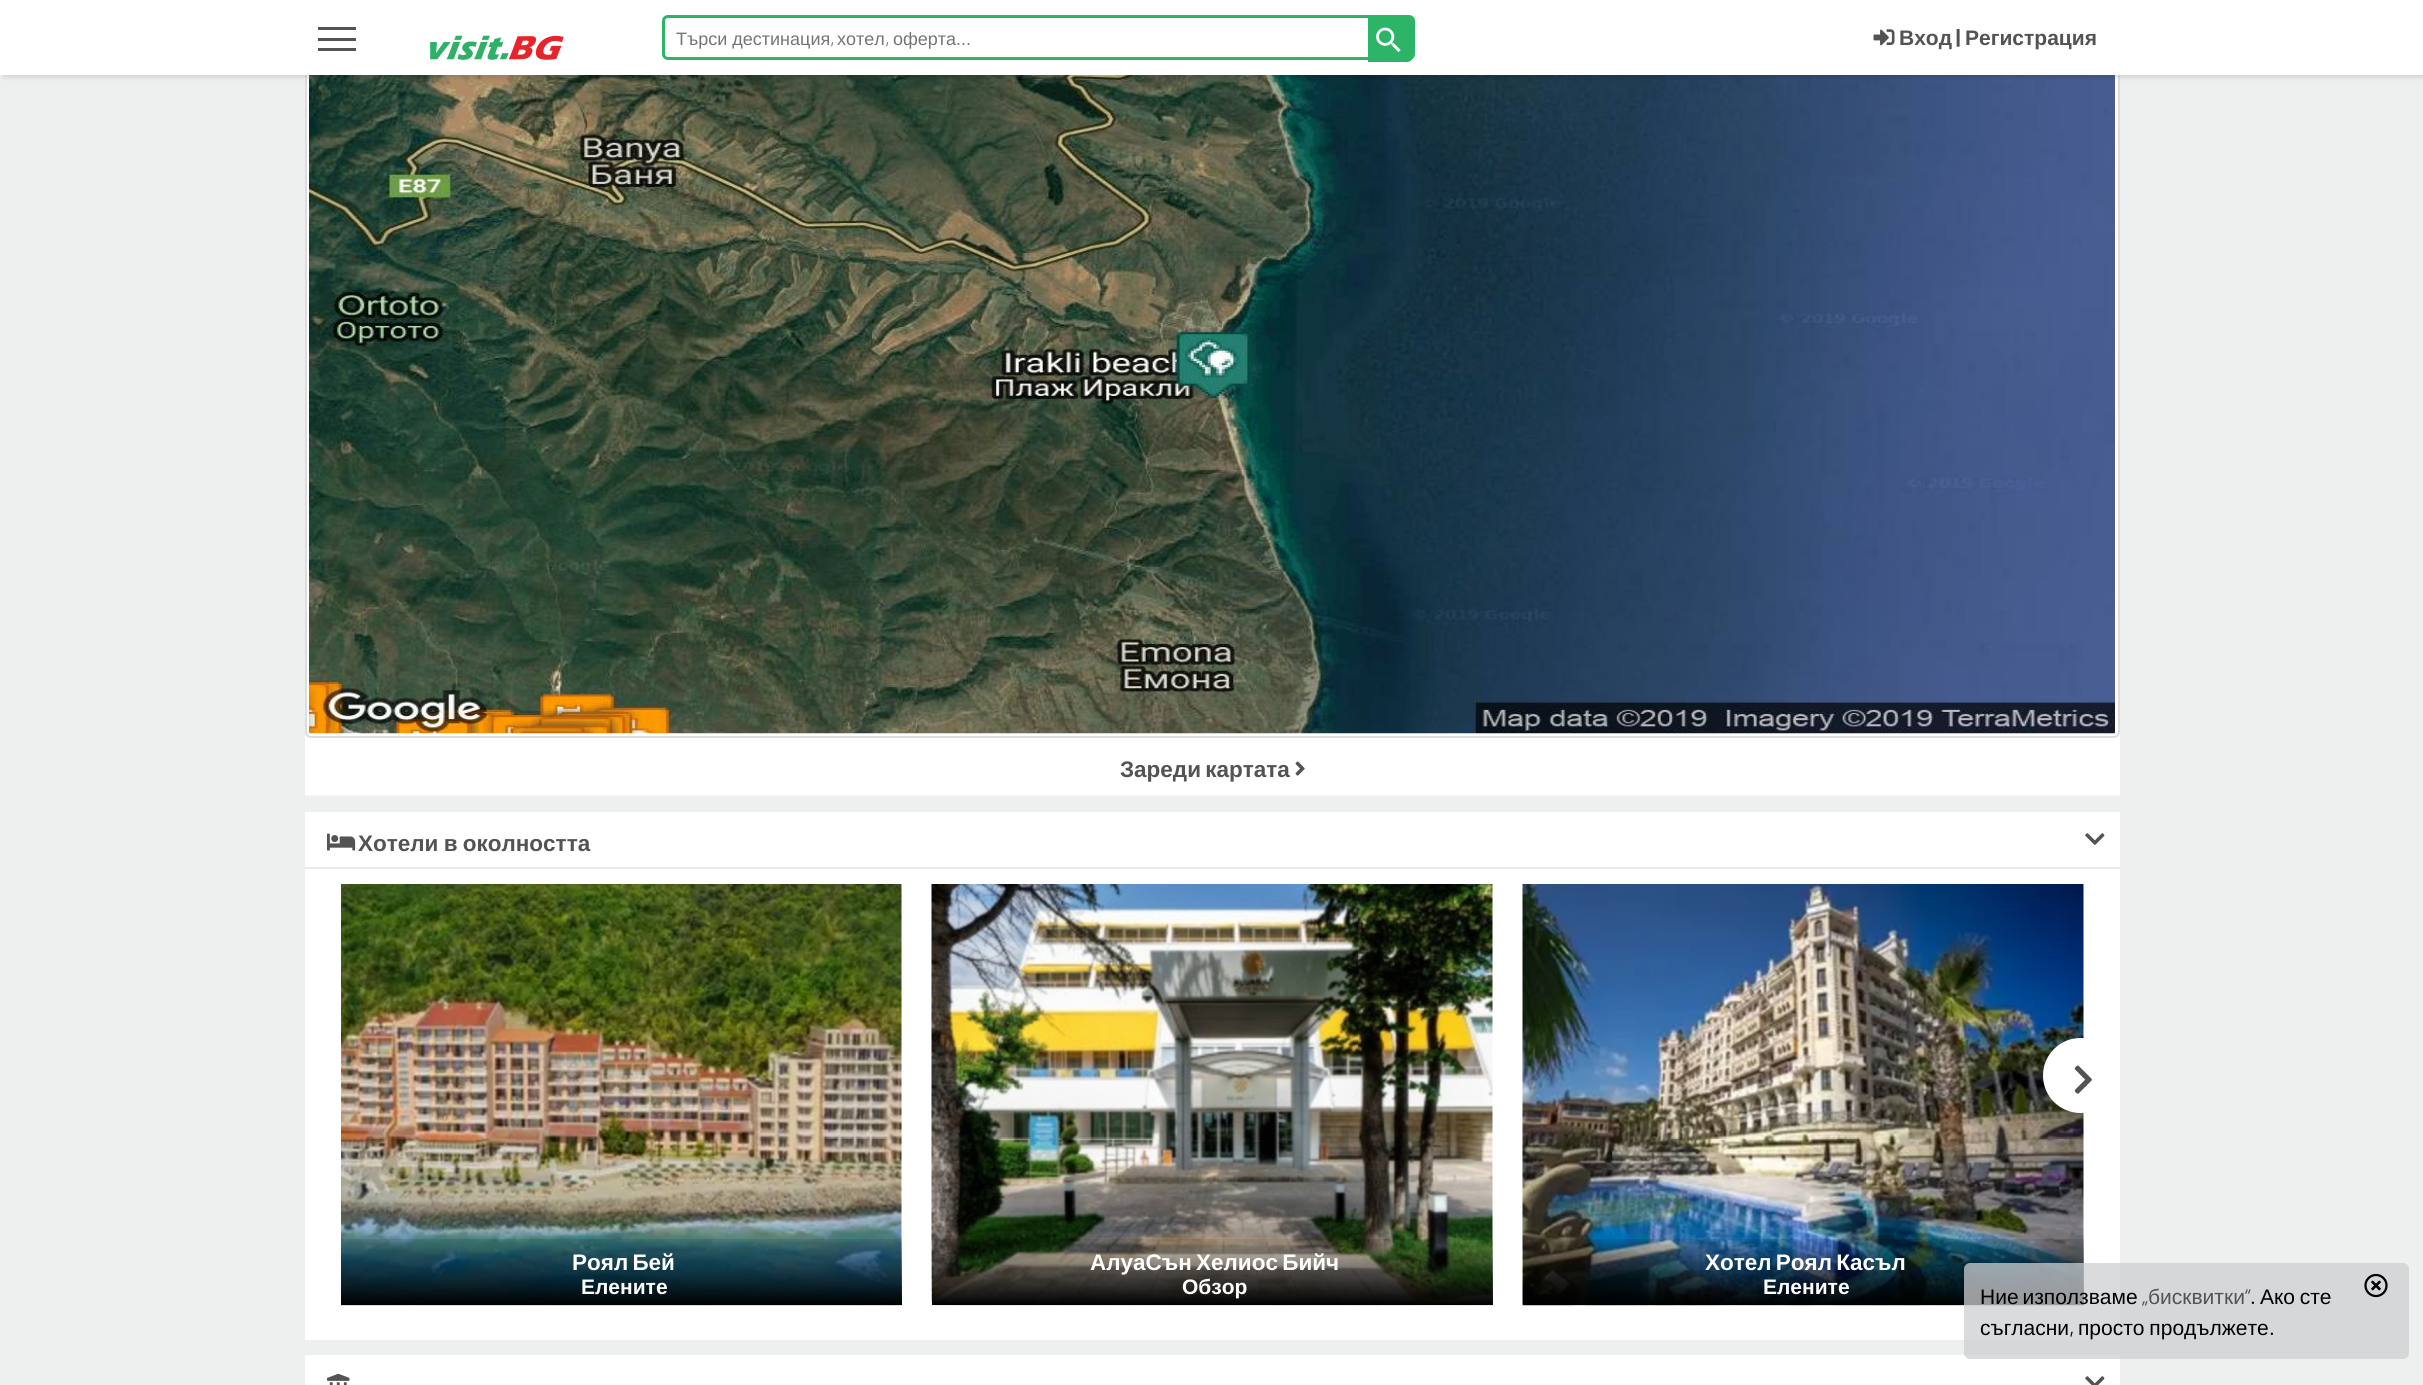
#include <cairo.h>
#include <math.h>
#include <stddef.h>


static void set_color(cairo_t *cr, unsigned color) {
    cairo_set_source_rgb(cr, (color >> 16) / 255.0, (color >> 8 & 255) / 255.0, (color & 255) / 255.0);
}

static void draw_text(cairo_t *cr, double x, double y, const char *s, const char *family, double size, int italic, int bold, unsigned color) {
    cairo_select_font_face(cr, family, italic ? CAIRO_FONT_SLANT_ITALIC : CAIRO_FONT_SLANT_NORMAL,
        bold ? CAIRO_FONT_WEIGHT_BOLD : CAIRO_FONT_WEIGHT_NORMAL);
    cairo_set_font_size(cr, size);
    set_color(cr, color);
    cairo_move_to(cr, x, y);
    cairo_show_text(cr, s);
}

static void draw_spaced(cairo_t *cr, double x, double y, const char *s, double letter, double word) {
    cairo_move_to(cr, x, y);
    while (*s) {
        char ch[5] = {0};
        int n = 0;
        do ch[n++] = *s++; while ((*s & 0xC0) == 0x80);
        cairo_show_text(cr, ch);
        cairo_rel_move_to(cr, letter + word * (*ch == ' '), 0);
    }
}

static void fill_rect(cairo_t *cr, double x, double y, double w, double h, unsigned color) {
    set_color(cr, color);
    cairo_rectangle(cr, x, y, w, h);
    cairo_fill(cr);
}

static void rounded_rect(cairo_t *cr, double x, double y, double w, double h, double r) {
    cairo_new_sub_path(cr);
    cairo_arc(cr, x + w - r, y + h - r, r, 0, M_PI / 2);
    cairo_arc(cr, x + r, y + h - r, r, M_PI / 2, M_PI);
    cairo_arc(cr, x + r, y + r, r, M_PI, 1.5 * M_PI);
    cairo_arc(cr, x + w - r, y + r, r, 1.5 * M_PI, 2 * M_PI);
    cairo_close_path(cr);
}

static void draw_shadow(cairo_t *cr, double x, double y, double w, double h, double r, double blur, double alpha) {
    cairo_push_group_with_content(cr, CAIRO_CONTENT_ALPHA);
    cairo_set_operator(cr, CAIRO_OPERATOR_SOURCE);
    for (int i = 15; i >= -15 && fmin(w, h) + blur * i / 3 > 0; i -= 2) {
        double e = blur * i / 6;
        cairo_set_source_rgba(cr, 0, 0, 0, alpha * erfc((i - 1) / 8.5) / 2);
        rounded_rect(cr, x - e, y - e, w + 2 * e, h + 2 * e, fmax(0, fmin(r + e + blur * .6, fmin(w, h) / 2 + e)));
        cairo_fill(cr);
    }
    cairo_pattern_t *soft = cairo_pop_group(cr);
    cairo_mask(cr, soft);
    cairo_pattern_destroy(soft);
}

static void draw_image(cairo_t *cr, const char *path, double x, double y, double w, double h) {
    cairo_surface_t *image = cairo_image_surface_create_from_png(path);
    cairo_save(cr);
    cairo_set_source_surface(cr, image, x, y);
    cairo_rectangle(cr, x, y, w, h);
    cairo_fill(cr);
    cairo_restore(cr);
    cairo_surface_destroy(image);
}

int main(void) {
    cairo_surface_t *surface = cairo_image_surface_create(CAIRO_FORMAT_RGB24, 2423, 1385);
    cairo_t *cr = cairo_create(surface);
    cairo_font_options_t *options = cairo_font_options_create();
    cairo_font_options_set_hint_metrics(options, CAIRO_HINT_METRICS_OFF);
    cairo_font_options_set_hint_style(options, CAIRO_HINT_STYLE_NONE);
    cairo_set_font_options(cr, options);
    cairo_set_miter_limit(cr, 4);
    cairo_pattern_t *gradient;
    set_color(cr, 0xEEEFEF);
    cairo_paint(cr);
    fill_rect(cr, 305, 75, 1815, 720, 0xFFFFFF);
    rounded_rect(cr, 306, -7, 1813, 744, 5);
    set_color(cr, 0xDDDDDD);
    cairo_stroke(cr);
    draw_image(cr, "assets/img4.png", 309, 75, 1806, 659);
    set_color(cr, 0x000000);
    draw_shadow(cr, 3, 3, 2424, 75, 0, 2, 0.1);
    fill_rect(cr, 0, 0, 2423, 75, 0xFFFFFF);
    fill_rect(cr, 318, 27, 38, 3, 0x535353);
    fill_rect(cr, 318, 38, 38, 3, 0x535353);
    fill_rect(cr, 318, 48, 38, 3, 0x535353);
    draw_image(cr, "assets/img1.png", 430, 35, 134, 25);
    rounded_rect(cr, 663.5, 16.5, 750, 42, 4.5);
    set_color(cr, 0x2CB566);
    cairo_set_line_width(cr, 3);
    cairo_stroke(cr);
    cairo_new_path(cr);
    cairo_move_to(cr, 1368, 17);
    cairo_line_to(cr, 1407, 17);
    cairo_curve_to(cr, 1410.5, 17, 1413, 19.5, 1413, 23);
    cairo_line_to(cr, 1413, 56);
    cairo_curve_to(cr, 1413, 59.5, 1410.5, 62, 1407, 62);
    cairo_line_to(cr, 1368, 62);
    cairo_close_path(cr);
    cairo_fill(cr);
    draw_text(cr, 676, 45, "Търси дестинация", "Liberation Sans", 18, 0, 0, 0x757575);
    draw_text(cr, 830, 45, ",", "Barlow", 18, 0, 0, 0x757575);
    draw_text(cr, 837, 45, "хотел", "Liberation Sans", 18, 0, 0, 0x757575);
    draw_text(cr, 885, 45, ",", "Barlow", 18, 0, 0, 0x757575);
    draw_text(cr, 893, 45, "оферта", "Liberation Sans", 18, 0, 0, 0x757575);
    draw_text(cr, 956, 45, "...", "Barlow", 18, 0, 0, 0x757575);
    draw_image(cr, "assets/img2.png", 1376, 27, 25, 26);
    draw_image(cr, "assets/img3.png", 1873, 29, 22, 17);
    draw_text(cr, 1899, 45, "Вход", "Liberation Sans", 21, 0, 1, 0x535353);
    draw_text(cr, 1956, 45, "|", "Barlow", 21, 0, 1, 0x535353);
    draw_text(cr, 1965, 45, "Регистрация", "Liberation Sans", 21, 0, 1, 0x535353);
    fill_rect(cr, 305, 795, 1815, 2, 0xF3F3F3);
    cairo_set_font_size(cr, 22.5);
    set_color(cr, 0x535353);
    draw_spaced(cr, 1120, 777, "Зареди картата", 0, -2);
    draw_image(cr, "assets/img5.png", 1295, 761, 10, 15);
    fill_rect(cr, 305, 812, 1815, 528, 0xFFFFFF);
    fill_rect(cr, 305, 867, 1815, 2, 0xE9EBEE);
    draw_image(cr, "assets/img6.png", 327, 833, 29, 18);
    set_color(cr, 0x535353);
    draw_spaced(cr, 358, 851, "Хотели в околността", 0, -1);
    draw_image(cr, "assets/img7.png", 2085, 833, 20, 12);
    draw_image(cr, "assets/img11.png", 1522, 884, 562, 422);
    set_color(cr, 0xFFFFFF);
    cairo_arc(cr, 2080.5, 1075.5, 36, 0, 2 * M_PI);
    cairo_fill_preserve(cr);
    cairo_stroke(cr);
    draw_image(cr, "assets/img8.png", 2074, 1065, 18, 29);
    draw_image(cr, "assets/img9.png", 341, 884, 561, 422);
    gradient = cairo_pattern_create_linear(621, 1232, 621, 1305);
    cairo_pattern_add_color_stop_rgba(gradient, 0, 0, 0, 0, 0);
    cairo_pattern_add_color_stop_rgba(gradient, 1, 0, 0, 0, 1);
    cairo_set_source(cr, gradient);
    cairo_pattern_destroy(gradient);
    cairo_rectangle(cr, 341, 1239, 561, 66);
    cairo_fill(cr);
    set_color(cr, 0xFFFFFF);
    draw_spaced(cr, 572, 1270, "Роял Бей", 0, -2);
    draw_text(cr, 581, 1294, "Елените", "Liberation Sans", 21, 0, 1, 0xFFFFFF);
    draw_image(cr, "assets/img10.png", 931, 884, 562, 422);
    gradient = cairo_pattern_create_linear(1212, 1232, 1212, 1305);
    cairo_pattern_add_color_stop_rgba(gradient, 0, 0, 0, 0, 0);
    cairo_pattern_add_color_stop_rgba(gradient, 1, 0, 0, 0, 1);
    cairo_set_source(cr, gradient);
    cairo_pattern_destroy(gradient);
    cairo_rectangle(cr, 932, 1239, 561, 66);
    cairo_fill(cr);
    cairo_set_font_size(cr, 22.5);
    set_color(cr, 0xFFFFFF);
    draw_spaced(cr, 1090, 1270, "АлуаСън Хелиос Бийч", 0, -2);
    draw_text(cr, 1182, 1294, "Обзор", "Liberation Sans", 21, 0, 1, 0xFFFFFF);
    gradient = cairo_pattern_create_linear(1803, 1232, 1803, 1305);
    cairo_pattern_add_color_stop_rgba(gradient, 0, 0, 0, 0, 0);
    cairo_pattern_add_color_stop_rgba(gradient, 1, 0, 0, 0, 1);
    cairo_set_source(cr, gradient);
    cairo_pattern_destroy(gradient);
    cairo_rectangle(cr, 1523, 1239, 561, 66);
    cairo_fill(cr);
    cairo_set_font_size(cr, 22.5);
    set_color(cr, 0xFFFFFF);
    draw_spaced(cr, 1705, 1270, "Хотел Роял Касъл", 0, -2);
    draw_text(cr, 1763, 1294, "Елените", "Liberation Sans", 21, 0, 1, 0xFFFFFF);
    fill_rect(cr, 305, 1355, 1815, 30, 0xFFFFFF);
    draw_image(cr, "assets/img12.png", 327, 1373, 23, 12);
    draw_image(cr, "assets/img13.png", 2085, 1376, 20, 9);
    cairo_set_source_rgba(cr, 0.8, 0.812, 0.82, 0.75);
    rounded_rect(cr, 1964, 1263, 445, 96, 6);
    cairo_fill(cr);
    draw_image(cr, "assets/img14.png", 2364, 1273, 24, 25);
    cairo_select_font_face(cr, "Liberation Sans", CAIRO_FONT_SLANT_NORMAL, CAIRO_FONT_WEIGHT_NORMAL);
    set_color(cr, 0x000000);
    draw_spaced(cr, 1980, 1304, "Ние използваме", 0, -2);
    draw_text(cr, 2142, 1304, "„", "Barlow", 21, 0, 0, 0x535353);
    draw_text(cr, 2148, 1304, "бисквитки", "Liberation Sans", 21, 0, 0, 0x535353);
    draw_text(cr, 2245, 1304, "“", "Barlow", 21, 0, 0, 0x535353);
    draw_text(cr, 2250, 1304, ".", "Barlow", 21, 0, 0, 0x000000);
    cairo_select_font_face(cr, "Liberation Sans", CAIRO_FONT_SLANT_NORMAL, CAIRO_FONT_WEIGHT_NORMAL);
    draw_spaced(cr, 2260, 1304, "Ако сте", 0, -1);
    draw_text(cr, 1980, 1335, "съгласни", "Liberation Sans", 21, 0, 0, 0x000000);
    draw_text(cr, 2069, 1335, ",", "Barlow", 21, 0, 0, 0x000000);
    cairo_select_font_face(cr, "Liberation Sans", CAIRO_FONT_SLANT_NORMAL, CAIRO_FONT_WEIGHT_NORMAL);
    draw_spaced(cr, 2078, 1335, "просто продължете", 0, -1);
    draw_text(cr, 2269, 1335, ".", "Barlow", 21, 0, 0, 0x000000);
    cairo_surface_write_to_png(surface, "output.png");
    cairo_font_options_destroy(options);
    cairo_destroy(cr);
    cairo_surface_destroy(surface);
    return 0;
}
